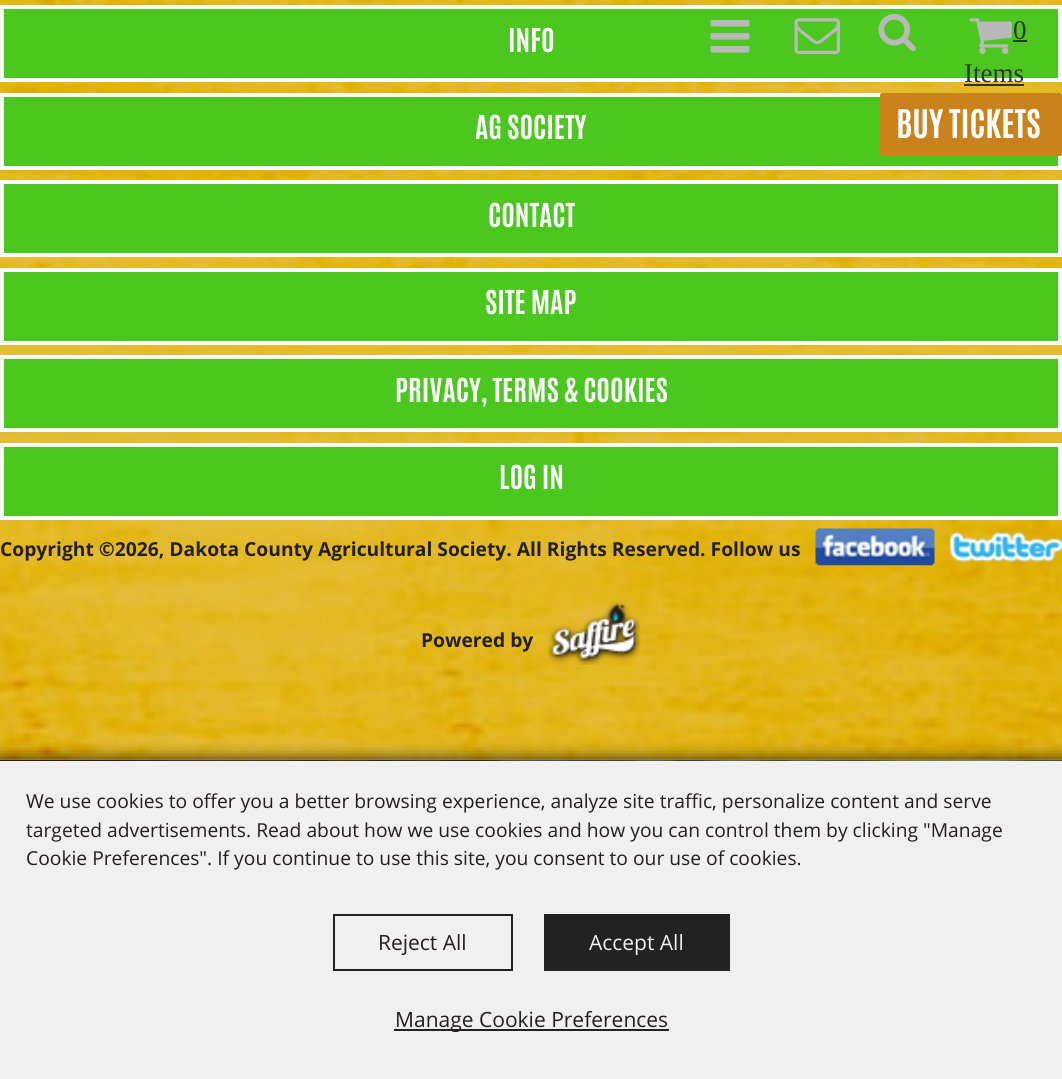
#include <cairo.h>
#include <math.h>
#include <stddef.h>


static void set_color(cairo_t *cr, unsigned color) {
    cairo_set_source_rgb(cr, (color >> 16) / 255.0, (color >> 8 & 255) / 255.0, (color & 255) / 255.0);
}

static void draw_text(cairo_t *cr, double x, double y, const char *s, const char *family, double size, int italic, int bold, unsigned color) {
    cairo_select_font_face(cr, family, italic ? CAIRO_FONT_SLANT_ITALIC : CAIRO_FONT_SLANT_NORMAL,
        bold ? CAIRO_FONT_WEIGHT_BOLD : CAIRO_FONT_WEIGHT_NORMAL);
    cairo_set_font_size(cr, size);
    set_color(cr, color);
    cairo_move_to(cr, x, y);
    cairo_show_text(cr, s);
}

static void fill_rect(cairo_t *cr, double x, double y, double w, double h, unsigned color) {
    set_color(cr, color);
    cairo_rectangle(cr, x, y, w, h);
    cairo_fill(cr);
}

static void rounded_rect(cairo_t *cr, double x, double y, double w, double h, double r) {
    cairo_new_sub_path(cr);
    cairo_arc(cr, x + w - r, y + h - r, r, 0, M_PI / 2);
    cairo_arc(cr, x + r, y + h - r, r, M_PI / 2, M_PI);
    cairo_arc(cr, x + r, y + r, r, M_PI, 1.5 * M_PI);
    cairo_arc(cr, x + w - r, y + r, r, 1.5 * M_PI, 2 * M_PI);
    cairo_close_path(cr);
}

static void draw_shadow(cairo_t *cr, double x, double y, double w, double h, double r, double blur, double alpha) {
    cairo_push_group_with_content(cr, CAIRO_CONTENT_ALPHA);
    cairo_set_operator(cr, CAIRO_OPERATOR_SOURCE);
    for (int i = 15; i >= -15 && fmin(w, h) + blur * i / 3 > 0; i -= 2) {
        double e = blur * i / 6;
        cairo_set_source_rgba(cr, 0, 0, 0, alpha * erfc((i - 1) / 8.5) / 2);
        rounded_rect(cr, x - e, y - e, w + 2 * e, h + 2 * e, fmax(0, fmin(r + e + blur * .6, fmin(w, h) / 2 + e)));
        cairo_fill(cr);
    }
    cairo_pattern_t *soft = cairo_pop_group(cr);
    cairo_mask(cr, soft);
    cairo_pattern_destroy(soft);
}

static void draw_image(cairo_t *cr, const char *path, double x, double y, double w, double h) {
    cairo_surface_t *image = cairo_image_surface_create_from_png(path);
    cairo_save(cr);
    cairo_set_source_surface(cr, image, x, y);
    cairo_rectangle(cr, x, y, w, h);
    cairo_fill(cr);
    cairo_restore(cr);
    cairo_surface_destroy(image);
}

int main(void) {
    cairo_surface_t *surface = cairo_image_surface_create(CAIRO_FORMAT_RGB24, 1062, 1079);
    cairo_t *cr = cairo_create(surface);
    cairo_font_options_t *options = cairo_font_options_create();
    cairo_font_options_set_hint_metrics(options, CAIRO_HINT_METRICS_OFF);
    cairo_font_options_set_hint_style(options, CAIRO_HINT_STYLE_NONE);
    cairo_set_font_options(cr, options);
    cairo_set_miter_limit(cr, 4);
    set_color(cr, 0xFFFFFF);
    cairo_paint(cr);
    draw_image(cr, "assets/img1.png", 0, 760, 1062, 1);
    draw_image(cr, "assets/img2.png", 0, 0, 1062, 760);
    set_color(cr, 0x4BC720);
    cairo_rectangle(cr, 2, 7, 1058, 73);
    cairo_fill_preserve(cr);
    set_color(cr, 0xFFFFFF);
    cairo_set_line_width(cr, 4);
    cairo_stroke(cr);
    draw_text(cr, 508, 52, "INFO", "Antonio", 28, 0, 1, 0xFFFFFF);
    set_color(cr, 0x4BC720);
    cairo_rectangle(cr, 2, 95, 1058, 73);
    cairo_fill_preserve(cr);
    set_color(cr, 0xFFFFFF);
    cairo_stroke(cr);
    draw_text(cr, 475, 139, "AG SOCIETY", "Antonio", 28, 0, 1, 0xFFFFFF);
    set_color(cr, 0x4BC720);
    cairo_rectangle(cr, 2, 182, 1058, 73);
    cairo_fill_preserve(cr);
    set_color(cr, 0xFFFFFF);
    cairo_stroke(cr);
    draw_text(cr, 488, 227, "CONTACT", "Antonio", 28, 0, 1, 0xFFFFFF);
    set_color(cr, 0x4BC720);
    cairo_rectangle(cr, 2, 270, 1058, 73);
    cairo_fill_preserve(cr);
    set_color(cr, 0xFFFFFF);
    cairo_stroke(cr);
    draw_text(cr, 485, 314, "SITE MAP", "Antonio", 28, 0, 1, 0xFFFFFF);
    set_color(cr, 0x4BC720);
    cairo_rectangle(cr, 2, 357, 1058, 73);
    cairo_fill_preserve(cr);
    set_color(cr, 0xFFFFFF);
    cairo_stroke(cr);
    draw_text(cr, 395, 402, "PRIVACY, TERMS & COOKIES", "Antonio", 28, 0, 1, 0xFFFFFF);
    set_color(cr, 0x4BC720);
    cairo_rectangle(cr, 2, 445, 1058, 73);
    cairo_fill_preserve(cr);
    set_color(cr, 0xFFFFFF);
    cairo_stroke(cr);
    draw_text(cr, 499, 489, "LOG IN", "Antonio", 28, 0, 1, 0xFFFFFF);
    draw_text(cr, 0, 556, "Copyright ©2026, Dakota County Agricultural Society. All Rights Reserved. Follow us", "Open Sans", 19.25, 0, 1, 0x231F20);
    draw_image(cr, "assets/img3.png", 815, 528, 120, 38);
    draw_image(cr, "assets/img4.png", 950, 532, 112, 30);
    draw_text(cr, 421, 647, "Powered by", "Open Sans", 19.25, 0, 1, 0x231F20);
    draw_image(cr, "assets/img5.png", 548, 601, 93, 64);
    draw_image(cr, "assets/img6.png", 710, 20, 40, 33);
    draw_image(cr, "assets/img7.png", 794, 18, 46, 36);
    draw_image(cr, "assets/img8.png", 878, 13, 38, 39);
    draw_image(cr, "assets/img9.png", 969, 18, 43, 36);
    draw_text(cr, 1013, 39, "0", "Liberation Serif", 27, 0, 0, 0x313131);
    fill_rect(cr, 1013, 40, 14, 2, 0x313131);
    draw_text(cr, 964, 82, "Items", "Liberation Serif", 27, 0, 0, 0x313131);
    fill_rect(cr, 964, 84, 60, 2, 0x313131);
    set_color(cr, 0xCA821C);
    rounded_rect(cr, 880, 93, 182, 63, 2);
    cairo_fill(cr);
    draw_text(cr, 896, 138, "BUY TICKETS", "Antonio", 33.5, 0, 1, 0xFFFFFF);
    set_color(cr, 0x000000);
    draw_shadow(cr, -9, 761, 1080, 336, 0, 9, 1);
    fill_rect(cr, 0, 761, 1062, 318, 0xF0F0F0);
    draw_text(cr, 26, 808, "We use cookies to offer you a better browsing experience, analyze site traffic, personalize content and serve", "Open Sans", 19.25, 0, 0, 0x231F20);
    draw_text(cr, 26, 837, "targeted advertisements. Read about how we use cookies and how you can control them by clicking \"Manage", "Open Sans", 19.25, 0, 0, 0x231F20);
    draw_text(cr, 26, 865, "Cookie Preferences\". If you continue to use this site, you consent to our use of cookies.", "Open Sans", 19.25, 0, 0, 0x231F20);
    cairo_rectangle(cr, 334, 915, 178, 55);
    set_color(cr, 0x222222);
    cairo_set_line_width(cr, 2);
    cairo_stroke(cr);
    draw_text(cr, 378, 950, "Reject All", "Open Sans", 21, 0, 0, 0x231F20);
    fill_rect(cr, 544, 914, 186, 57, 0x222222);
    draw_text(cr, 589, 950, "Accept All", "Open Sans", 21, 0, 0, 0xF0F0F0);
    fill_rect(cr, 394, 1029, 275, 2, 0x222222);
    draw_text(cr, 395, 1027, "Manage Cookie Preferences", "Open Sans", 21, 0, 0, 0x231F20);
    cairo_surface_write_to_png(surface, "output.png");
    cairo_font_options_destroy(options);
    cairo_destroy(cr);
    cairo_surface_destroy(surface);
    return 0;
}
